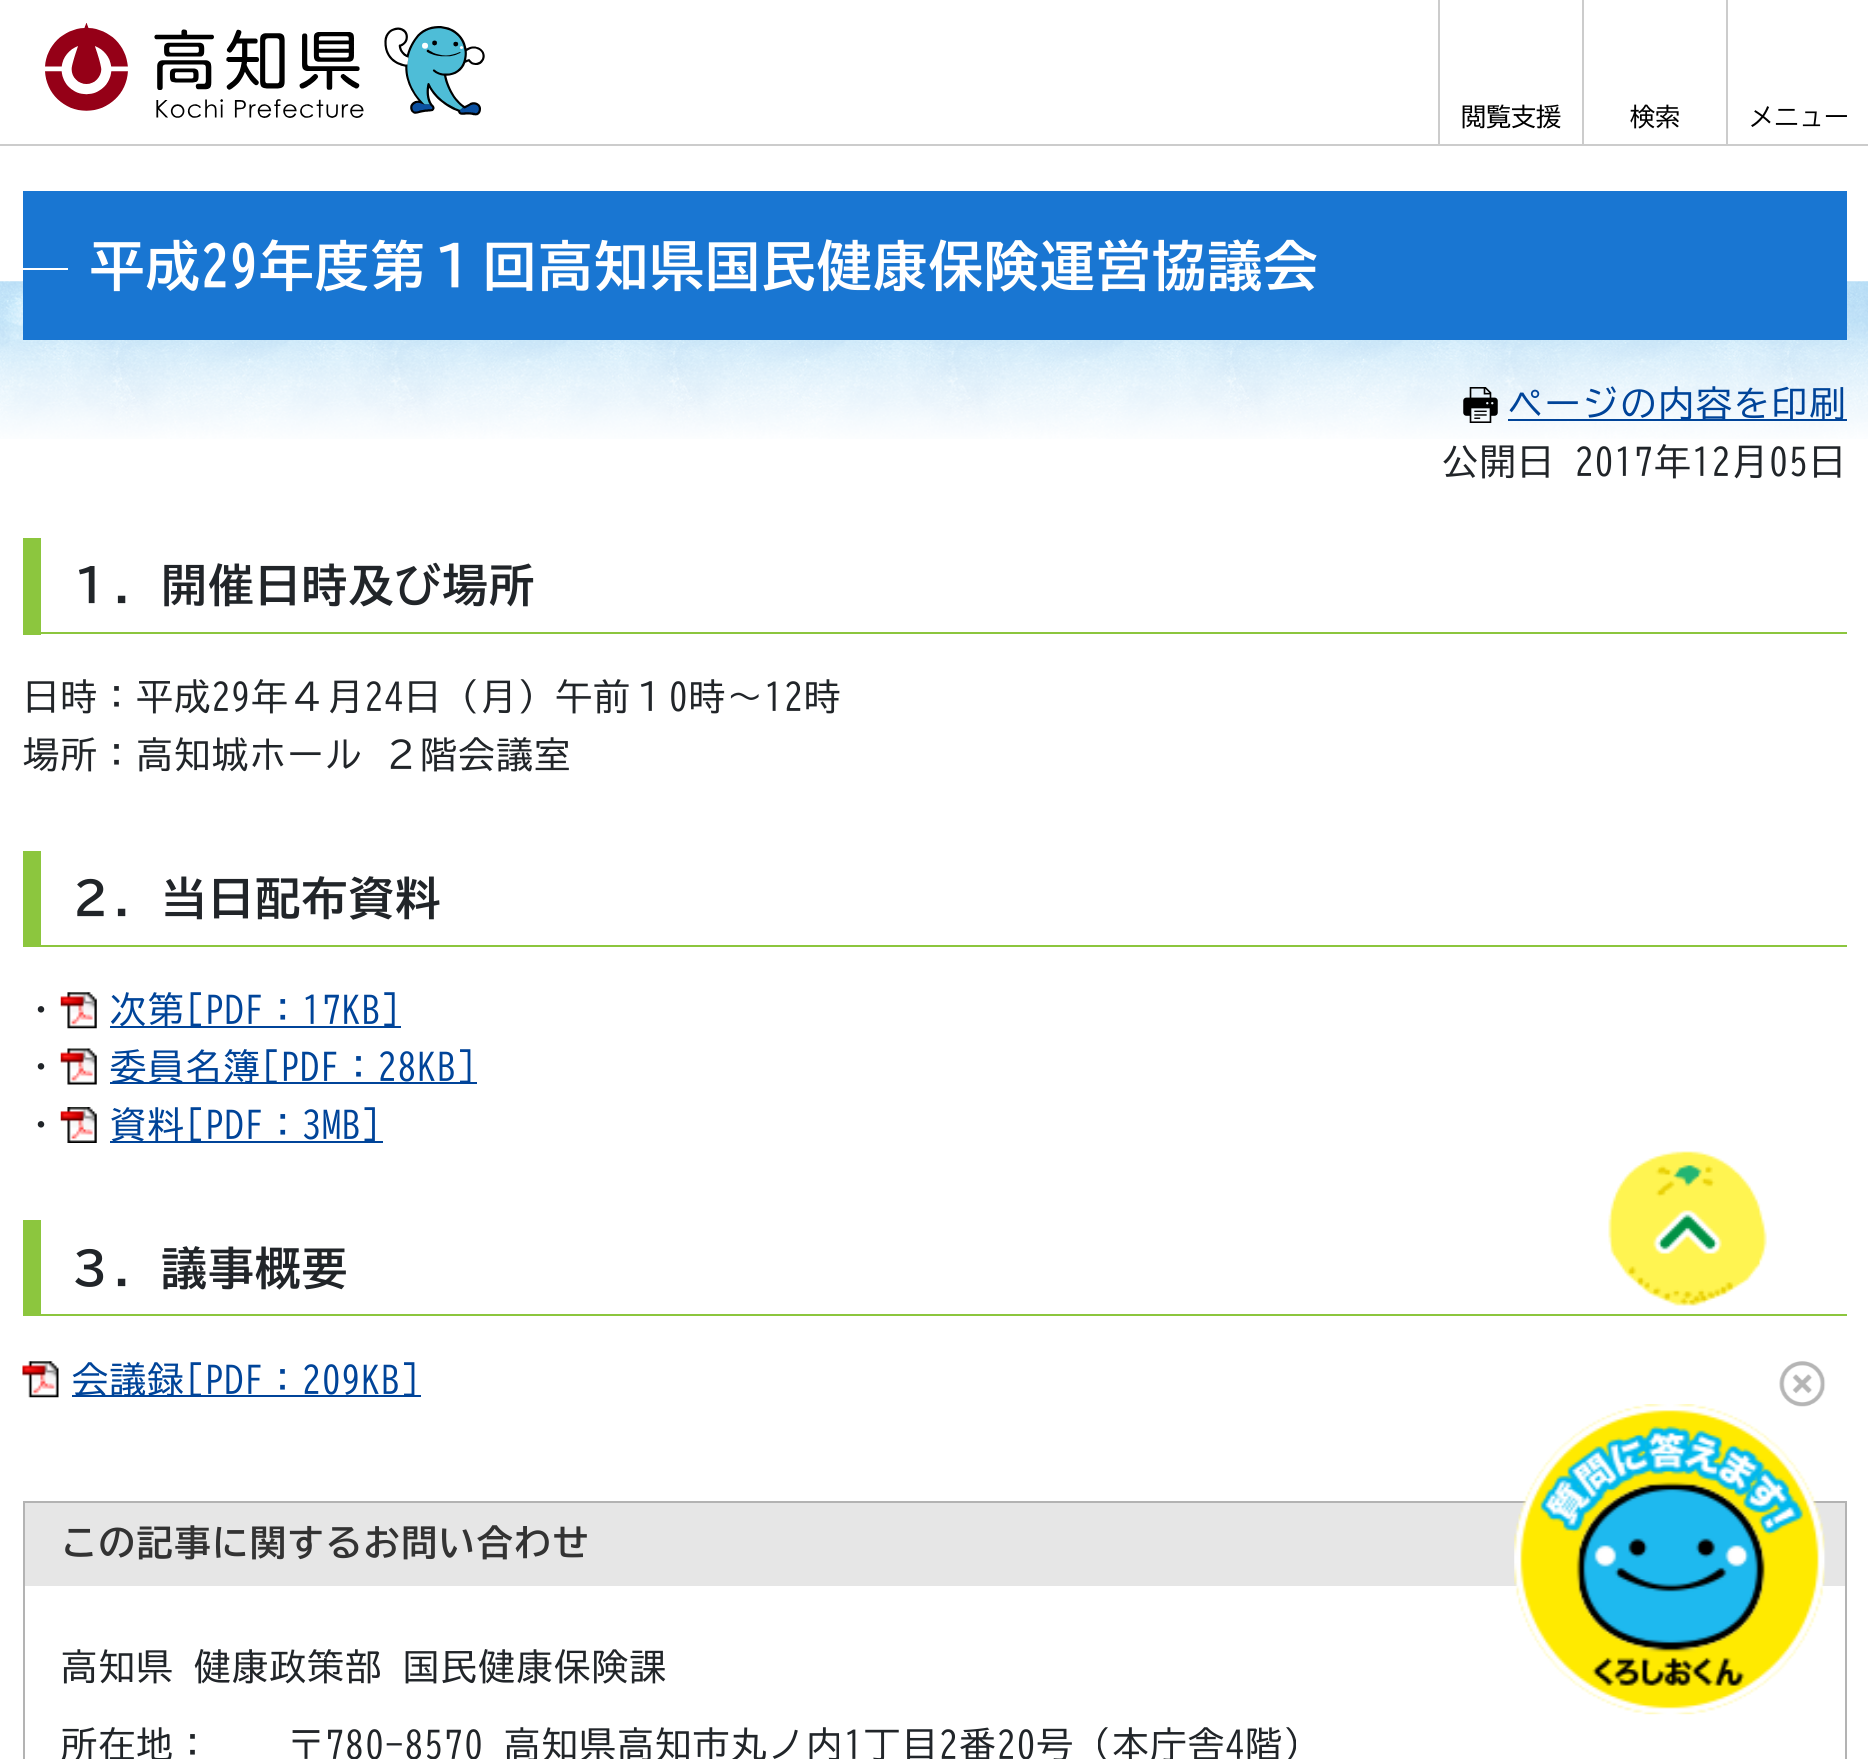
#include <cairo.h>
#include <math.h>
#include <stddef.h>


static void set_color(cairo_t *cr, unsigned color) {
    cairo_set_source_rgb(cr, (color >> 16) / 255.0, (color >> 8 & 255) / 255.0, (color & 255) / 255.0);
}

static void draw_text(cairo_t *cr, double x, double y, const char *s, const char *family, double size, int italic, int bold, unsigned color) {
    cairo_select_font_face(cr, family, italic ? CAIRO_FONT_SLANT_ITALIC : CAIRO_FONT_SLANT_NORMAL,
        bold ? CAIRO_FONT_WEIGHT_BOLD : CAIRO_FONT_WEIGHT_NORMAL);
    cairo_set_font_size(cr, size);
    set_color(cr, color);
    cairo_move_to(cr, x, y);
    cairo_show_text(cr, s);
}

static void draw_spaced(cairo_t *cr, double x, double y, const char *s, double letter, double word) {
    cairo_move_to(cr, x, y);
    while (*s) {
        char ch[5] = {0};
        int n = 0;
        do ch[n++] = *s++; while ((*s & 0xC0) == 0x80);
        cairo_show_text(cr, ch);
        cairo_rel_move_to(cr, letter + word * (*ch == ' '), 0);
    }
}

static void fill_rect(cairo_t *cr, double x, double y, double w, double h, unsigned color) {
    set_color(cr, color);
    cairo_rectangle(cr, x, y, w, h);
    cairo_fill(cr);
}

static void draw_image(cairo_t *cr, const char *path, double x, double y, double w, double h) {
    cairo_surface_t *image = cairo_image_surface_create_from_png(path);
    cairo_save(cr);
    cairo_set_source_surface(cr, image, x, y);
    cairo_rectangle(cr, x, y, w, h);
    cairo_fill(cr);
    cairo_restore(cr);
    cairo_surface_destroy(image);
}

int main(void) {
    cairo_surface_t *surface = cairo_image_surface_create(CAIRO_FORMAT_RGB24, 1868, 1759);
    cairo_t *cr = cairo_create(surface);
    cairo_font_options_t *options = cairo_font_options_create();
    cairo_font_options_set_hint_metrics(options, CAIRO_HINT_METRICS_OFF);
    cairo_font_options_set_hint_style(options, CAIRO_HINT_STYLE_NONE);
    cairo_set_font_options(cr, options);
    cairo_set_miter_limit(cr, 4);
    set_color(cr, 0xFFFFFF);
    cairo_paint(cr);
    fill_rect(cr, 0, 144, 1868, 2, 0xCCCCCC);
    draw_image(cr, "assets/img1.png", 45, 23, 440, 95);
    fill_rect(cr, 1438, 0, 2, 144, 0xCCCCCC);
    draw_text(cr, 1461, 126, "閲覧支援", "BIZ UDGothic", 25, 0, 0, 0x000000);
    fill_rect(cr, 1582, 0, 2, 144, 0xCCCCCC);
    draw_text(cr, 1630, 126, "検索", "BIZ UDGothic", 25, 0, 0, 0x000000);
    fill_rect(cr, 1726, 0, 2, 144, 0xCCCCCC);
    draw_text(cr, 1749, 126, "メニュー", "BIZ UDGothic", 25, 0, 0, 0x000000);
    draw_image(cr, "assets/img2.png", 0, 281, 1868, 158);
    fill_rect(cr, 23, 191, 1824, 149, 0x1976D2);
    fill_rect(cr, 23, 268, 45, 2, 0xFFFFFF);
    cairo_select_font_face(cr, "BIZ UDGothic", CAIRO_FONT_SLANT_NORMAL, CAIRO_FONT_WEIGHT_BOLD);
    cairo_set_font_size(cr, 54);
    draw_spaced(cr, 90, 286, "平成29年度第１回高知県国民健康保険運営協議会", 1.8, 0);
    draw_image(cr, "assets/img3.png", 1463, 387, 35, 36);
    fill_rect(cr, 1508, 419, 339, 2, 0x004499);
    cairo_select_font_face(cr, "BIZ UDGothic", CAIRO_FONT_SLANT_NORMAL, CAIRO_FONT_WEIGHT_NORMAL);
    cairo_set_font_size(cr, 36);
    draw_spaced(cr, 1507, 417, "ページの内容を印刷", 1.8, 0);
    set_color(cr, 0x212529);
    draw_spaced(cr, 1442, 475, "公開日 2017年12月05日", 1.8, 0);
    fill_rect(cr, 41, 632, 1806, 2, 0x8CC63E);
    fill_rect(cr, 23, 538, 18, 97, 0x8CC63E);
    cairo_select_font_face(cr, "BIZ UDGothic", CAIRO_FONT_SLANT_NORMAL, CAIRO_FONT_WEIGHT_BOLD);
    cairo_set_font_size(cr, 45);
    set_color(cr, 0x212529);
    draw_spaced(cr, 68, 602, "１．開催日時及び場所", 1.8, 0);
    cairo_select_font_face(cr, "BIZ UDGothic", CAIRO_FONT_SLANT_NORMAL, CAIRO_FONT_WEIGHT_NORMAL);
    cairo_set_font_size(cr, 36);
    draw_spaced(cr, 23, 710, "日時：平成29年４月24日（月）午前１0時～12時", 1.8, 0);
    draw_spaced(cr, 23, 768, "場所：高知城ホール ２階会議室", 1.8, 0);
    fill_rect(cr, 41, 945, 1806, 2, 0x8CC63E);
    fill_rect(cr, 23, 851, 18, 96, 0x8CC63E);
    cairo_select_font_face(cr, "BIZ UDGothic", CAIRO_FONT_SLANT_NORMAL, CAIRO_FONT_WEIGHT_BOLD);
    cairo_set_font_size(cr, 45);
    set_color(cr, 0x212529);
    draw_spaced(cr, 68, 915, "２．当日配布資料", 1.8, 0);
    cairo_select_font_face(cr, "BIZ UDGothic", CAIRO_FONT_SLANT_NORMAL, CAIRO_FONT_WEIGHT_NORMAL);
    cairo_set_font_size(cr, 36);
    draw_spaced(cr, 23, 1023, "・", 1.8, 0);
    draw_image(cr, "assets/img4.png", 60, 992, 37, 37);
    fill_rect(cr, 110, 1026, 291, 2, 0x004499);
    draw_spaced(cr, 110, 1023, "次第[PDF：17KB]", 1.8, 0);
    set_color(cr, 0x212529);
    draw_spaced(cr, 23, 1080, "・", 1.8, 0);
    draw_image(cr, "assets/img5.png", 60, 1048, 37, 37);
    fill_rect(cr, 110, 1082, 367, 2, 0x004499);
    draw_spaced(cr, 110, 1080, "委員名簿[PDF：28KB]", 1.8, 0);
    set_color(cr, 0x212529);
    draw_spaced(cr, 23, 1138, "・", 1.8, 0);
    draw_image(cr, "assets/img6.png", 60, 1107, 37, 36);
    fill_rect(cr, 110, 1141, 273, 2, 0x004499);
    draw_spaced(cr, 110, 1138, "資料[PDF：3MB]", 1.8, 0);
    fill_rect(cr, 41, 1314, 1806, 2, 0x8CC63E);
    fill_rect(cr, 23, 1220, 18, 96, 0x8CC63E);
    cairo_select_font_face(cr, "BIZ UDGothic", CAIRO_FONT_SLANT_NORMAL, CAIRO_FONT_WEIGHT_BOLD);
    cairo_set_font_size(cr, 45);
    set_color(cr, 0x212529);
    draw_spaced(cr, 68, 1285, "３．議事概要", 1.8, 0);
    draw_image(cr, "assets/img7.png", 22, 1361, 37, 37);
    fill_rect(cr, 72, 1395, 349, 2, 0x004499);
    cairo_select_font_face(cr, "BIZ UDGothic", CAIRO_FONT_SLANT_NORMAL, CAIRO_FONT_WEIGHT_NORMAL);
    cairo_set_font_size(cr, 36);
    draw_spaced(cr, 72, 1393, "会議録[PDF：209KB]", 1.8, 0);
    cairo_rectangle(cr, 24, 1502, 1822, 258);
    set_color(cr, 0xB3B3B3);
    cairo_stroke(cr);
    fill_rect(cr, 25, 1503, 1820, 83, 0xE6E6E6);
    cairo_select_font_face(cr, "BIZ UDGothic", CAIRO_FONT_SLANT_NORMAL, CAIRO_FONT_WEIGHT_BOLD);
    set_color(cr, 0x333333);
    draw_spaced(cr, 61, 1556, "この記事に関するお問い合わせ", 1.8, 0);
    cairo_select_font_face(cr, "BIZ UDGothic", CAIRO_FONT_SLANT_NORMAL, CAIRO_FONT_WEIGHT_NORMAL);
    set_color(cr, 0x212529);
    draw_spaced(cr, 61, 1680, "高知県 健康政策部 国民健康保険課", 1.8, 0);
    draw_spaced(cr, 61, 1758, "所在地：", 1.8, 0);
    draw_spaced(cr, 288, 1758, "〒780-8570 高知県高知市丸ノ内1丁目2番20号（本庁舎4階）", 1.8, 0);
    draw_image(cr, "assets/img8.png", 1608, 1151, 159, 155);
    draw_image(cr, "assets/img9.png", 1514, 1361, 312, 354);
    cairo_surface_write_to_png(surface, "output.png");
    cairo_font_options_destroy(options);
    cairo_destroy(cr);
    cairo_surface_destroy(surface);
    return 0;
}
